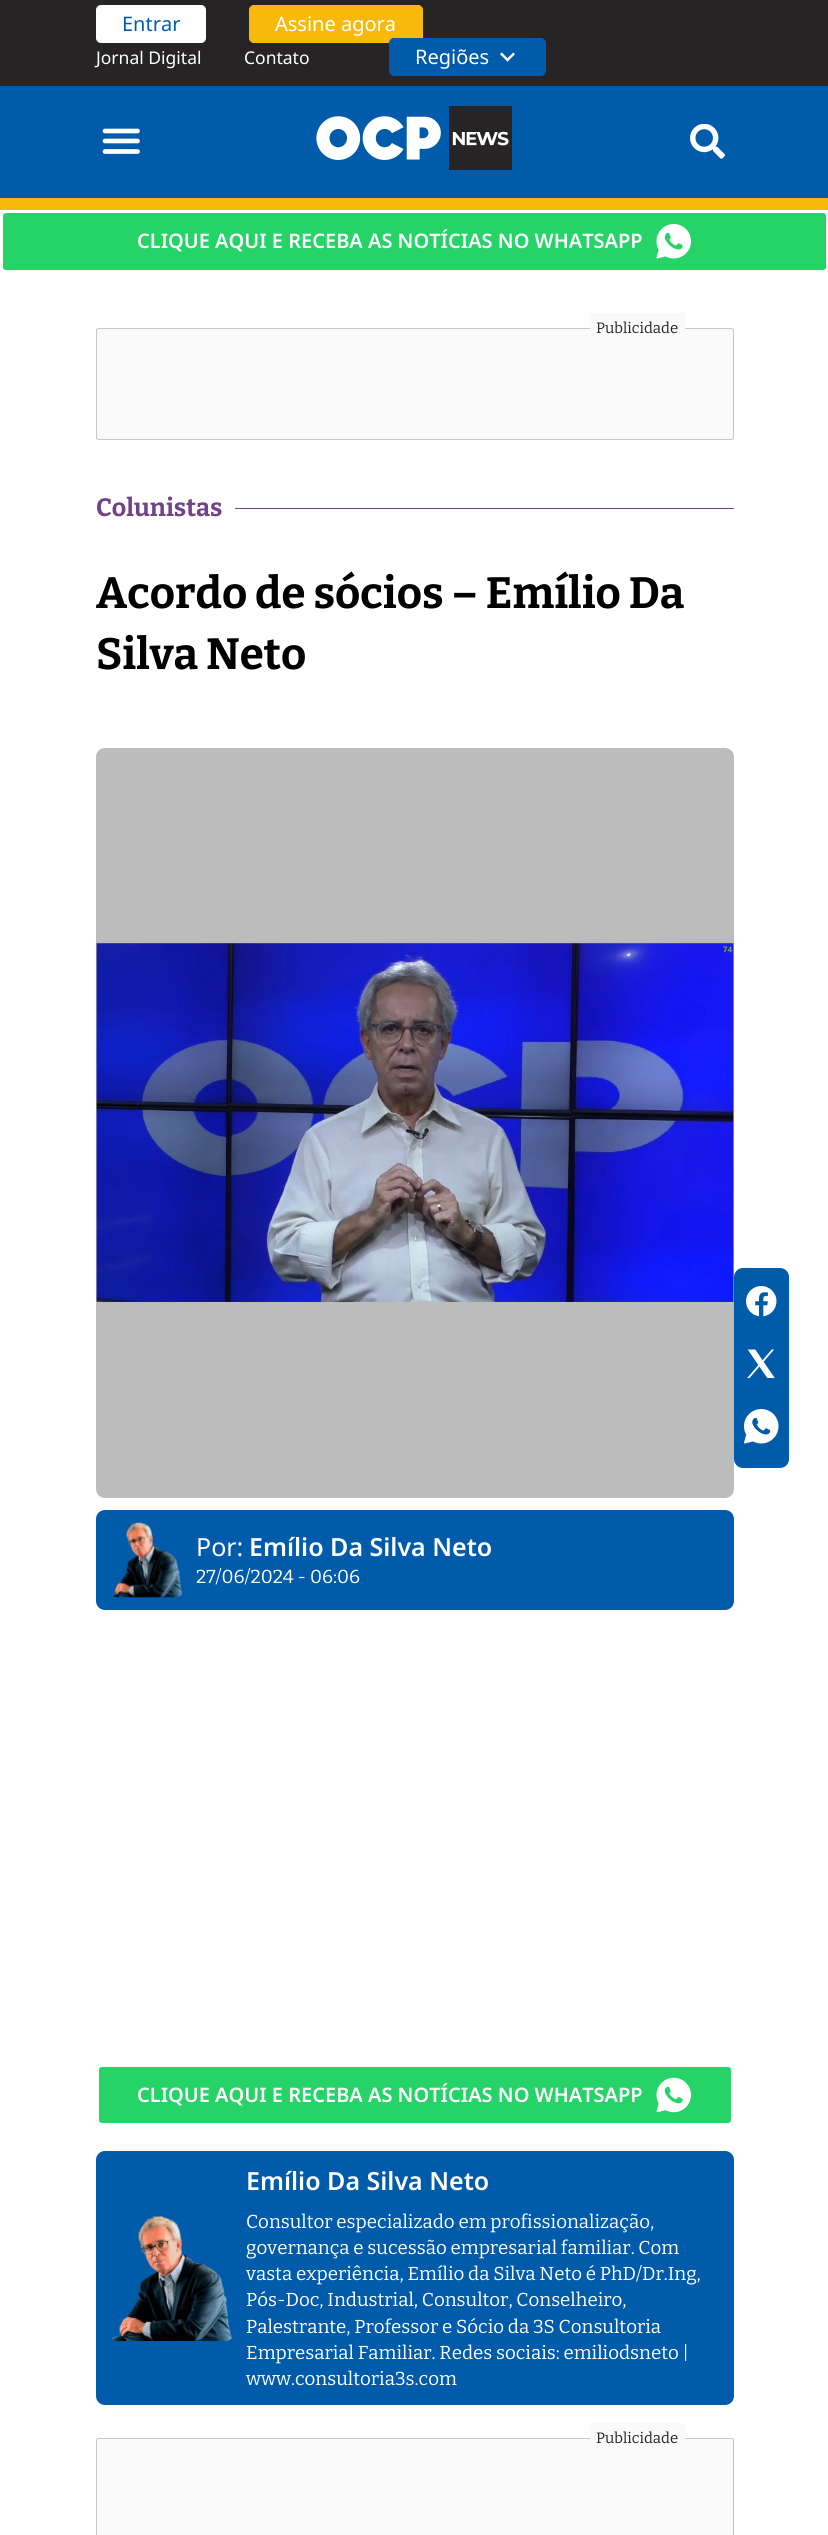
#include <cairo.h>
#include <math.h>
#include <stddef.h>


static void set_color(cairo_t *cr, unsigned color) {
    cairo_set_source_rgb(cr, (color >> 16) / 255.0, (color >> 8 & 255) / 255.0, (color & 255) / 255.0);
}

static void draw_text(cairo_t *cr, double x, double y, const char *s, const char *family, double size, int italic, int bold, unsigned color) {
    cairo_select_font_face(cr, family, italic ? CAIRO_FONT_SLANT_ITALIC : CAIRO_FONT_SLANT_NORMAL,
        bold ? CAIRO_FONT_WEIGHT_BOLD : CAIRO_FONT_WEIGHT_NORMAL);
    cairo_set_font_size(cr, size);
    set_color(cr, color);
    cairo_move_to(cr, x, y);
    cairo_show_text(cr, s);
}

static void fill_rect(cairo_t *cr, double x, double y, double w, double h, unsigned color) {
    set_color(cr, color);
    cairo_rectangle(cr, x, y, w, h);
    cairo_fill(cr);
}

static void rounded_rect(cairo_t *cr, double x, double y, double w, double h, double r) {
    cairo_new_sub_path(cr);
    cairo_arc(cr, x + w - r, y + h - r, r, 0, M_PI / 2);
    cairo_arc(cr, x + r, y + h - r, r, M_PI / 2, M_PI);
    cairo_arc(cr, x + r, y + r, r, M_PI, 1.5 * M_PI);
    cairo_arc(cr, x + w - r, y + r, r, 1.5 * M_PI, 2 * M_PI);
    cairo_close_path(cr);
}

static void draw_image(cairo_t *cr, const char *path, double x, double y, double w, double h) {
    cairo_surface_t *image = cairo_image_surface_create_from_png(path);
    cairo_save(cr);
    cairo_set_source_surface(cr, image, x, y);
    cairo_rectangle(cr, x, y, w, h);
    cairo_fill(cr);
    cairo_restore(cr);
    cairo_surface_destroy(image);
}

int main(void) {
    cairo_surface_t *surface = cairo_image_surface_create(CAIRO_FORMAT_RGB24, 828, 2535);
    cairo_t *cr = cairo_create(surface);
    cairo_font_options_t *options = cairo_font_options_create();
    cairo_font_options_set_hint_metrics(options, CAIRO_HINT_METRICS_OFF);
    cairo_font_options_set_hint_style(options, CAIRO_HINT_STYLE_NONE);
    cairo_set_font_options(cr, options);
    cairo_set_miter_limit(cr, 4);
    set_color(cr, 0xFFFFFF);
    cairo_paint(cr);
    fill_rect(cr, 0, 0, 828, 86, 0x272425);
    set_color(cr, 0xFFFFFF);
    rounded_rect(cr, 96.5, 5.5, 109, 37, 4.5);
    cairo_fill_preserve(cr);
    cairo_set_line_width(cr, 1);
    cairo_stroke(cr);
    draw_text(cr, 122, 31, "Entrar", "Noto Sans", 20, 0, 0, 0x005BAA);
    set_color(cr, 0xF8B90C);
    rounded_rect(cr, 249.5, 5.5, 173, 37, 4.5);
    cairo_fill_preserve(cr);
    cairo_stroke(cr);
    draw_text(cr, 275, 31, "Assine agora", "Noto Sans", 20, 0, 0, 0xFFFFFF);
    draw_text(cr, 96, 64, "Jornal Digital", "Noto Sans", 17.5, 0, 0, 0xFFFFFF);
    draw_text(cr, 244, 64, "Contato", "Noto Sans", 17.5, 0, 0, 0xFFFFFF);
    set_color(cr, 0x005BAA);
    rounded_rect(cr, 389.5, 38.5, 156, 37, 4.5);
    cairo_fill_preserve(cr);
    cairo_stroke(cr);
    draw_text(cr, 415, 64, "Regiões", "Noto Sans", 20, 0, 0, 0xFFFFFF);
    draw_image(cr, "assets/img1.png", 500, 52, 15, 10);
    fill_rect(cr, 0, 86, 828, 112, 0x005BAA);
    fill_rect(cr, 0, 198, 828, 12, 0xF8B90C);
    cairo_new_path(cr);
    cairo_move_to(cr, 105, 131);
    cairo_line_to(cr, 137.5, 131);
    cairo_move_to(cr, 105, 141);
    cairo_line_to(cr, 137.5, 141);
    cairo_move_to(cr, 105, 151.5);
    cairo_line_to(cr, 137.5, 151.5);
    set_color(cr, 0xFFFFFF);
    cairo_set_line_width(cr, 4.7);
    cairo_set_line_cap(cr, CAIRO_LINE_CAP_ROUND);
    cairo_stroke(cr);
    draw_image(cr, "assets/img2.png", 316, 106, 196, 64);
    draw_image(cr, "assets/img3.png", 690, 124, 35, 35);
    set_color(cr, 0x25D366);
    rounded_rect(cr, 1.5, 211.5, 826, 60, 4.5);
    cairo_fill_preserve(cr);
    set_color(cr, 0xFFFFFF);
    cairo_set_line_width(cr, 3);
    cairo_set_line_cap(cr, CAIRO_LINE_CAP_BUTT);
    cairo_stroke(cr);
    draw_text(cr, 137, 248, "CLIQUE AQUI E RECEBA AS NOTÍCIAS NO WHATSAPP", "Noto Sans SemiBold", 20, 0, 0, 0xFFFFFF);
    draw_image(cr, "assets/img4.png", 656, 224, 35, 35);
    set_color(cr, 0xFAFAFA);
    rounded_rect(cr, 96.5, 328.5, 637, 111, 2);
    cairo_fill_preserve(cr);
    set_color(cr, 0xC7C7C7);
    cairo_set_line_width(cr, 1);
    cairo_stroke(cr);
    fill_rect(cr, 590, 313, 95, 16, 0xFAFAFA);
    draw_text(cr, 596, 333, "Publicidade", "Bitter", 15, 0, 0, 0x272425);
    draw_text(cr, 96, 516, "Colunistas", "Bitter", 25, 0, 1, 0x714286);
    fill_rect(cr, 235, 508, 499, 1, 0x714286);
    draw_text(cr, 96, 608, "Acordo de sócios – Emílio Da", "Bitter", 43.75, 0, 1, 0x000000);
    draw_text(cr, 96, 669, "Silva Neto", "Bitter", 43.75, 0, 1, 0x000000);
    set_color(cr, 0x005BAA);
    rounded_rect(cr, 734, 1268, 55, 200, 9);
    cairo_fill(cr);
    draw_image(cr, "assets/img5.png", 746, 1286, 31, 31);
    draw_image(cr, "assets/img6.png", 747, 1349, 28, 29);
    draw_image(cr, "assets/img7.png", 744, 1409, 35, 35);
    set_color(cr, 0xBCBCBC);
    rounded_rect(cr, 96, 748, 638, 750, 9);
    cairo_fill(cr);
    draw_image(cr, "assets/img8.png", 96, 943, 638, 359);
    set_color(cr, 0x005BAA);
    rounded_rect(cr, 96, 1510, 638, 100, 9);
    cairo_fill(cr);
    draw_image(cr, "assets/img9.png", 111, 1522, 71, 76);
    draw_text(cr, 196, 1556, "Por:", "Noto Sans", 25, 0, 0, 0xFFFFFF);
    draw_text(cr, 249, 1556, "Emílio Da Silva Neto", "Noto Sans SemiBold", 25, 0, 0, 0xFFFFFF);
    draw_text(cr, 196, 1583, "27/06/2024 - 06:06", "Bitter", 18.75, 0, 0, 0xFFFFFF);
    set_color(cr, 0x25D366);
    rounded_rect(cr, 97.5, 2065.5, 635, 59, 4.5);
    cairo_fill_preserve(cr);
    set_color(cr, 0xFFFFFF);
    cairo_set_line_width(cr, 3);
    cairo_stroke(cr);
    draw_text(cr, 137, 2102, "CLIQUE AQUI E RECEBA AS NOTÍCIAS NO WHATSAPP", "Noto Sans SemiBold", 20, 0, 0, 0xFFFFFF);
    draw_image(cr, "assets/img10.png", 656, 2077, 35, 36);
    set_color(cr, 0x005BAA);
    rounded_rect(cr, 96, 2151, 638, 254, 9);
    cairo_fill(cr);
    draw_image(cr, "assets/img11.png", 111, 2216, 121, 126);
    draw_text(cr, 246, 2190, "Emílio Da Silva Neto", "Noto Sans SemiBold", 25, 0, 0, 0xFFFFFF);
    draw_text(cr, 246, 2228, "Consultor especializado em profissionalização,", "Bitter", 18.75, 0, 0, 0xFFFFFF);
    draw_text(cr, 246, 2254, "governança e sucessão empresarial familiar. Com", "Bitter", 18.75, 0, 0, 0xFFFFFF);
    draw_text(cr, 246, 2280, "vasta experiência, Emílio da Silva Neto é PhD/Dr.Ing,", "Bitter", 18.75, 0, 0, 0xFFFFFF);
    draw_text(cr, 246, 2306, "Pós-Doc, Industrial, Consultor, Conselheiro,", "Bitter", 18.75, 0, 0, 0xFFFFFF);
    draw_text(cr, 246, 2333, "Palestrante, Professor e Sócio da 3S Consultoria", "Bitter", 18.75, 0, 0, 0xFFFFFF);
    draw_text(cr, 246, 2359, "Empresarial Familiar. Redes sociais: emiliodsneto |", "Bitter", 18.75, 0, 0, 0xFFFFFF);
    draw_text(cr, 246, 2385, "www.consultoria3s.com", "Bitter", 18.75, 0, 0, 0xFFFFFF);
    set_color(cr, 0xFAFAFA);
    rounded_rect(cr, 96.5, 2438.5, 637, 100, 2);
    cairo_fill_preserve(cr);
    set_color(cr, 0xC7C7C7);
    cairo_set_line_width(cr, 1);
    cairo_stroke(cr);
    fill_rect(cr, 590, 2423, 95, 16, 0xFAFAFA);
    draw_text(cr, 596, 2443, "Publicidade", "Bitter", 15, 0, 0, 0x272425);
    cairo_surface_write_to_png(surface, "output.png");
    cairo_font_options_destroy(options);
    cairo_destroy(cr);
    cairo_surface_destroy(surface);
    return 0;
}
